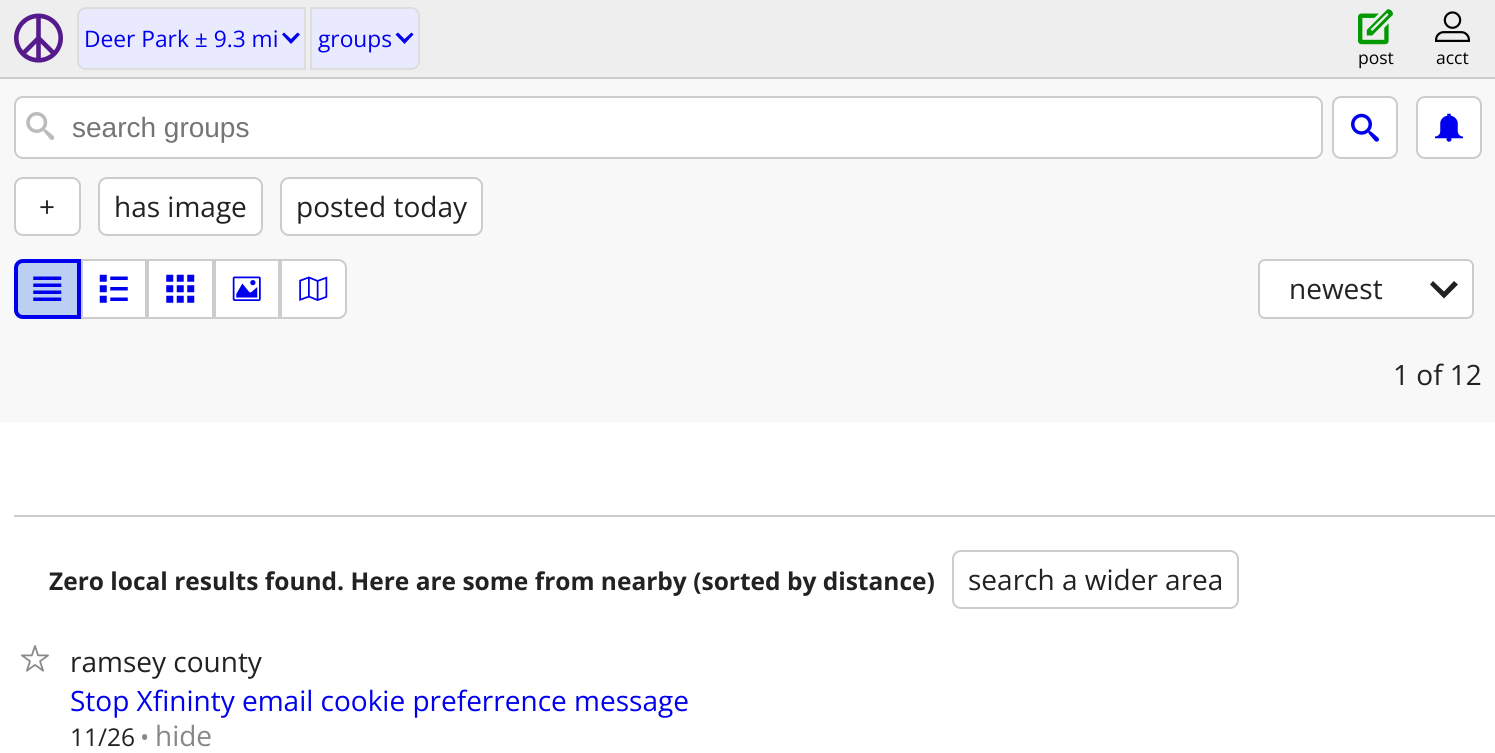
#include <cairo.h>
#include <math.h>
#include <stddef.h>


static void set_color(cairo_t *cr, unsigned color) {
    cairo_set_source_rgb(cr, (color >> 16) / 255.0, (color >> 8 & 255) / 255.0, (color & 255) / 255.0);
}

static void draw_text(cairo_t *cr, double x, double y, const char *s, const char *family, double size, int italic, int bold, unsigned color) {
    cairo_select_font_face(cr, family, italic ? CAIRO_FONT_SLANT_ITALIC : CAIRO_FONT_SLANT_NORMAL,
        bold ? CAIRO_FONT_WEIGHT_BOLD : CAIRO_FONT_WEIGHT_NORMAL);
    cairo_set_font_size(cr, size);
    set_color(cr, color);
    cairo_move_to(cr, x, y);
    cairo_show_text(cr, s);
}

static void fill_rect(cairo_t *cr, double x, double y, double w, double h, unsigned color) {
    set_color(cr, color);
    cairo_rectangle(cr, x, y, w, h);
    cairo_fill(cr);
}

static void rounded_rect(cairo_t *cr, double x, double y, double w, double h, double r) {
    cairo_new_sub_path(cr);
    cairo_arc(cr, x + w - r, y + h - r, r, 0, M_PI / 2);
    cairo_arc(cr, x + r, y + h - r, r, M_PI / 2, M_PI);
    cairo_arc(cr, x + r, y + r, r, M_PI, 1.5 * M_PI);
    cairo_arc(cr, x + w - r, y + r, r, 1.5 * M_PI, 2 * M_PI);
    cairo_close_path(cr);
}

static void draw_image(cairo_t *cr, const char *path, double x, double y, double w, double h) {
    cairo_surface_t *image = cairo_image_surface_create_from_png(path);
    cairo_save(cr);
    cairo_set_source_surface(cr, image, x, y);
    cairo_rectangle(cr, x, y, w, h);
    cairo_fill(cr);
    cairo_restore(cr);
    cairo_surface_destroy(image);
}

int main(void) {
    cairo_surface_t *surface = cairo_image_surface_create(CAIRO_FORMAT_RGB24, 1495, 753);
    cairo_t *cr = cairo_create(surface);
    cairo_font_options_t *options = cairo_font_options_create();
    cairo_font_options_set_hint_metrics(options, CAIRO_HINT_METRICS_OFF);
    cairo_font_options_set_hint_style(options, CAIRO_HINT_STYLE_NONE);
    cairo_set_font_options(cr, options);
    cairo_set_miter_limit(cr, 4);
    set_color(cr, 0xFFFFFF);
    cairo_paint(cr);
    fill_rect(cr, 0, 0, 1495, 77, 0xEEEEEE);
    fill_rect(cr, 0, 77, 1495, 2, 0xCCCCCC);
    draw_image(cr, "assets/img1.png", 14, 13, 49, 50);
    set_color(cr, 0xEAEAFF);
    cairo_new_path(cr);
    cairo_move_to(cr, 86, 8);
    cairo_line_to(cr, 305, 8);
    cairo_line_to(cr, 305, 69);
    cairo_line_to(cr, 86, 69);
    cairo_curve_to(cr, 81.5, 69, 78, 65.5, 78, 61);
    cairo_line_to(cr, 78, 16);
    cairo_curve_to(cr, 78, 11.5, 81.5, 8, 86, 8);
    cairo_close_path(cr);
    cairo_fill_preserve(cr);
    set_color(cr, 0xDDDDDD);
    cairo_stroke(cr);
    draw_text(cr, 84, 47, "Deer Park ± 9.3 mi", "Open Sans", 22.75, 0, 0, 0x0000EE);
    cairo_new_path(cr);
    cairo_move_to(cr, 300, 34.5);
    cairo_line_to(cr, 297.5, 32.5);
    cairo_line_to(cr, 291, 39);
    cairo_line_to(cr, 284, 32.5);
    cairo_line_to(cr, 282, 34.5);
    cairo_line_to(cr, 291, 44);
    cairo_close_path(cr);
    cairo_fill(cr);
    set_color(cr, 0xEAEAFF);
    cairo_new_path(cr);
    cairo_move_to(cr, 311, 8);
    cairo_line_to(cr, 411, 8);
    cairo_curve_to(cr, 415.5, 8, 419, 11.5, 419, 16);
    cairo_line_to(cr, 419, 61);
    cairo_curve_to(cr, 419, 65.5, 415.5, 69, 411, 69);
    cairo_line_to(cr, 311, 69);
    cairo_close_path(cr);
    cairo_fill_preserve(cr);
    set_color(cr, 0xDDDDDD);
    cairo_stroke(cr);
    draw_text(cr, 318, 47, "groups", "Open Sans", 22.75, 0, 0, 0x0000EE);
    cairo_new_path(cr);
    cairo_move_to(cr, 413.5, 34.5);
    cairo_line_to(cr, 411.5, 32.5);
    cairo_line_to(cr, 404.5, 39);
    cairo_line_to(cr, 398, 32.5);
    cairo_line_to(cr, 395.5, 34.5);
    cairo_line_to(cr, 404.5, 44);
    cairo_close_path(cr);
    cairo_fill(cr);
    draw_image(cr, "assets/img2.png", 1358, 9, 35, 36);
    draw_text(cr, 1358, 64, "post", "Open Sans", 17.5, 0, 0, 0x000000);
    draw_image(cr, "assets/img3.png", 1435, 11, 35, 31);
    draw_text(cr, 1436, 64, "acct", "Open Sans", 17.5, 0, 0, 0x000000);
    fill_rect(cr, 0, 79, 1495, 343, 0xF8F8F8);
    set_color(cr, 0xFFFFFF);
    rounded_rect(cr, 15, 97, 1307, 61, 8);
    cairo_fill_preserve(cr);
    set_color(cr, 0xCCCCCC);
    cairo_stroke(cr);
    draw_image(cr, "assets/img4.png", 26, 112, 29, 28);
    draw_text(cr, 72, 137, "search groups", "Liberation Sans", 28, 0, 0, 0x757575);
    set_color(cr, 0xFFFFFF);
    rounded_rect(cr, 1333, 97, 64, 61, 8);
    cairo_fill_preserve(cr);
    set_color(cr, 0xCCCCCC);
    cairo_stroke(cr);
    draw_image(cr, "assets/img5.png", 1351, 113, 28, 29);
    set_color(cr, 0xFFFFFF);
    rounded_rect(cr, 1417, 97, 64, 61, 8);
    cairo_fill_preserve(cr);
    set_color(cr, 0xCCCCCC);
    cairo_stroke(cr);
    draw_image(cr, "assets/img6.png", 1435, 113, 28, 29);
    set_color(cr, 0xFFFFFF);
    rounded_rect(cr, 15, 178, 65, 57, 8);
    cairo_fill_preserve(cr);
    set_color(cr, 0xCCCCCC);
    cairo_stroke(cr);
    draw_text(cr, 39, 217, "+", "Open Sans", 28, 0, 0, 0x222222);
    set_color(cr, 0xFFFFFF);
    rounded_rect(cr, 99, 178, 163, 57, 8);
    cairo_fill_preserve(cr);
    set_color(cr, 0xCCCCCC);
    cairo_stroke(cr);
    draw_text(cr, 114, 217, "has image", "Open Sans", 28, 0, 0, 0x222222);
    set_color(cr, 0xFFFFFF);
    rounded_rect(cr, 281, 178, 201, 57, 8);
    cairo_fill_preserve(cr);
    set_color(cr, 0xCCCCCC);
    cairo_stroke(cr);
    draw_text(cr, 296, 217, "posted today", "Open Sans", 28, 0, 0, 0x222222);
    set_color(cr, 0xBACFF2);
    cairo_new_path(cr);
    cairo_move_to(cr, 23, 261);
    cairo_line_to(cr, 79, 261);
    cairo_line_to(cr, 79, 317);
    cairo_line_to(cr, 23, 317);
    cairo_curve_to(cr, 19, 317, 16, 314, 16, 310);
    cairo_line_to(cr, 16, 268);
    cairo_curve_to(cr, 16, 264, 19, 261, 23, 261);
    cairo_close_path(cr);
    cairo_fill_preserve(cr);
    set_color(cr, 0x0000EE);
    cairo_set_line_width(cr, 4);
    cairo_stroke(cr);
    draw_image(cr, "assets/img7.png", 33, 276, 29, 25);
    set_color(cr, 0xFFFFFF);
    cairo_rectangle(cr, 82, 260, 64, 58);
    cairo_fill_preserve(cr);
    set_color(cr, 0xCCCCCC);
    cairo_set_line_width(cr, 2);
    cairo_stroke(cr);
    draw_image(cr, "assets/img8.png", 99, 274, 29, 29);
    set_color(cr, 0xFFFFFF);
    cairo_rectangle(cr, 148, 260, 65, 58);
    cairo_fill_preserve(cr);
    set_color(cr, 0xCCCCCC);
    cairo_stroke(cr);
    draw_image(cr, "assets/img9.png", 166, 274, 29, 29);
    set_color(cr, 0xFFFFFF);
    cairo_rectangle(cr, 215, 260, 64, 58);
    cairo_fill_preserve(cr);
    set_color(cr, 0xCCCCCC);
    cairo_stroke(cr);
    draw_image(cr, "assets/img10.png", 232, 276, 29, 25);
    set_color(cr, 0xFFFFFF);
    cairo_new_path(cr);
    cairo_move_to(cr, 281, 260);
    cairo_line_to(cr, 338, 260);
    cairo_curve_to(cr, 342.5, 260, 346, 263.5, 346, 268);
    cairo_line_to(cr, 346, 310);
    cairo_curve_to(cr, 346, 314.5, 342.5, 318, 338, 318);
    cairo_line_to(cr, 281, 318);
    cairo_close_path(cr);
    cairo_fill_preserve(cr);
    set_color(cr, 0xCCCCCC);
    cairo_stroke(cr);
    draw_image(cr, "assets/img11.png", 299, 276, 29, 25);
    set_color(cr, 0xFFFFFF);
    rounded_rect(cr, 1259, 260, 214, 58, 6);
    cairo_fill_preserve(cr);
    set_color(cr, 0xCCCCCC);
    cairo_stroke(cr);
    draw_text(cr, 1289, 299, "newest", "Open Sans", 28, 0, 0, 0x222222);
    cairo_new_path(cr);
    cairo_move_to(cr, 1458, 284.5);
    cairo_line_to(cr, 1454, 281);
    cairo_line_to(cr, 1444, 291.5);
    cairo_line_to(cr, 1433, 281);
    cairo_line_to(cr, 1430, 284.5);
    cairo_line_to(cr, 1444, 298.5);
    cairo_close_path(cr);
    cairo_fill(cr);
    draw_text(cr, 1393, 385, "1 of 12", "Open Sans", 28, 0, 0, 0x222222);
    fill_rect(cr, 14, 515, 1481, 2, 0xCCCCCC);
    draw_text(cr, 49, 590, "Zero local results found. Here are some from nearby (sorted by distance)", "Open Sans", 24.5, 0, 1, 0x222222);
    rounded_rect(cr, 953, 551, 285, 57, 8);
    set_color(cr, 0xCCCCCC);
    cairo_stroke(cr);
    draw_text(cr, 968, 590, "search a wider area", "Open Sans", 28, 0, 0, 0x222222);
    draw_image(cr, "assets/img12.png", 21, 645, 28, 27);
    draw_text(cr, 70, 672, "ramsey county", "Open Sans", 28, 0, 0, 0x222222);
    draw_text(cr, 70, 711, "Stop Xfininty email cookie preferrence message", "Open Sans", 28, 0, 0, 0x0000EE);
    draw_text(cr, 70, 746, "11/26", "Open Sans", 24.5, 0, 0, 0x222222);
    draw_text(cr, 140, 746, "•", "Open Sans", 24.5, 0, 0, 0x888888);
    draw_text(cr, 155, 746, "hide", "Open Sans", 28, 0, 0, 0x888888);
    cairo_surface_write_to_png(surface, "output.png");
    cairo_font_options_destroy(options);
    cairo_destroy(cr);
    cairo_surface_destroy(surface);
    return 0;
}
